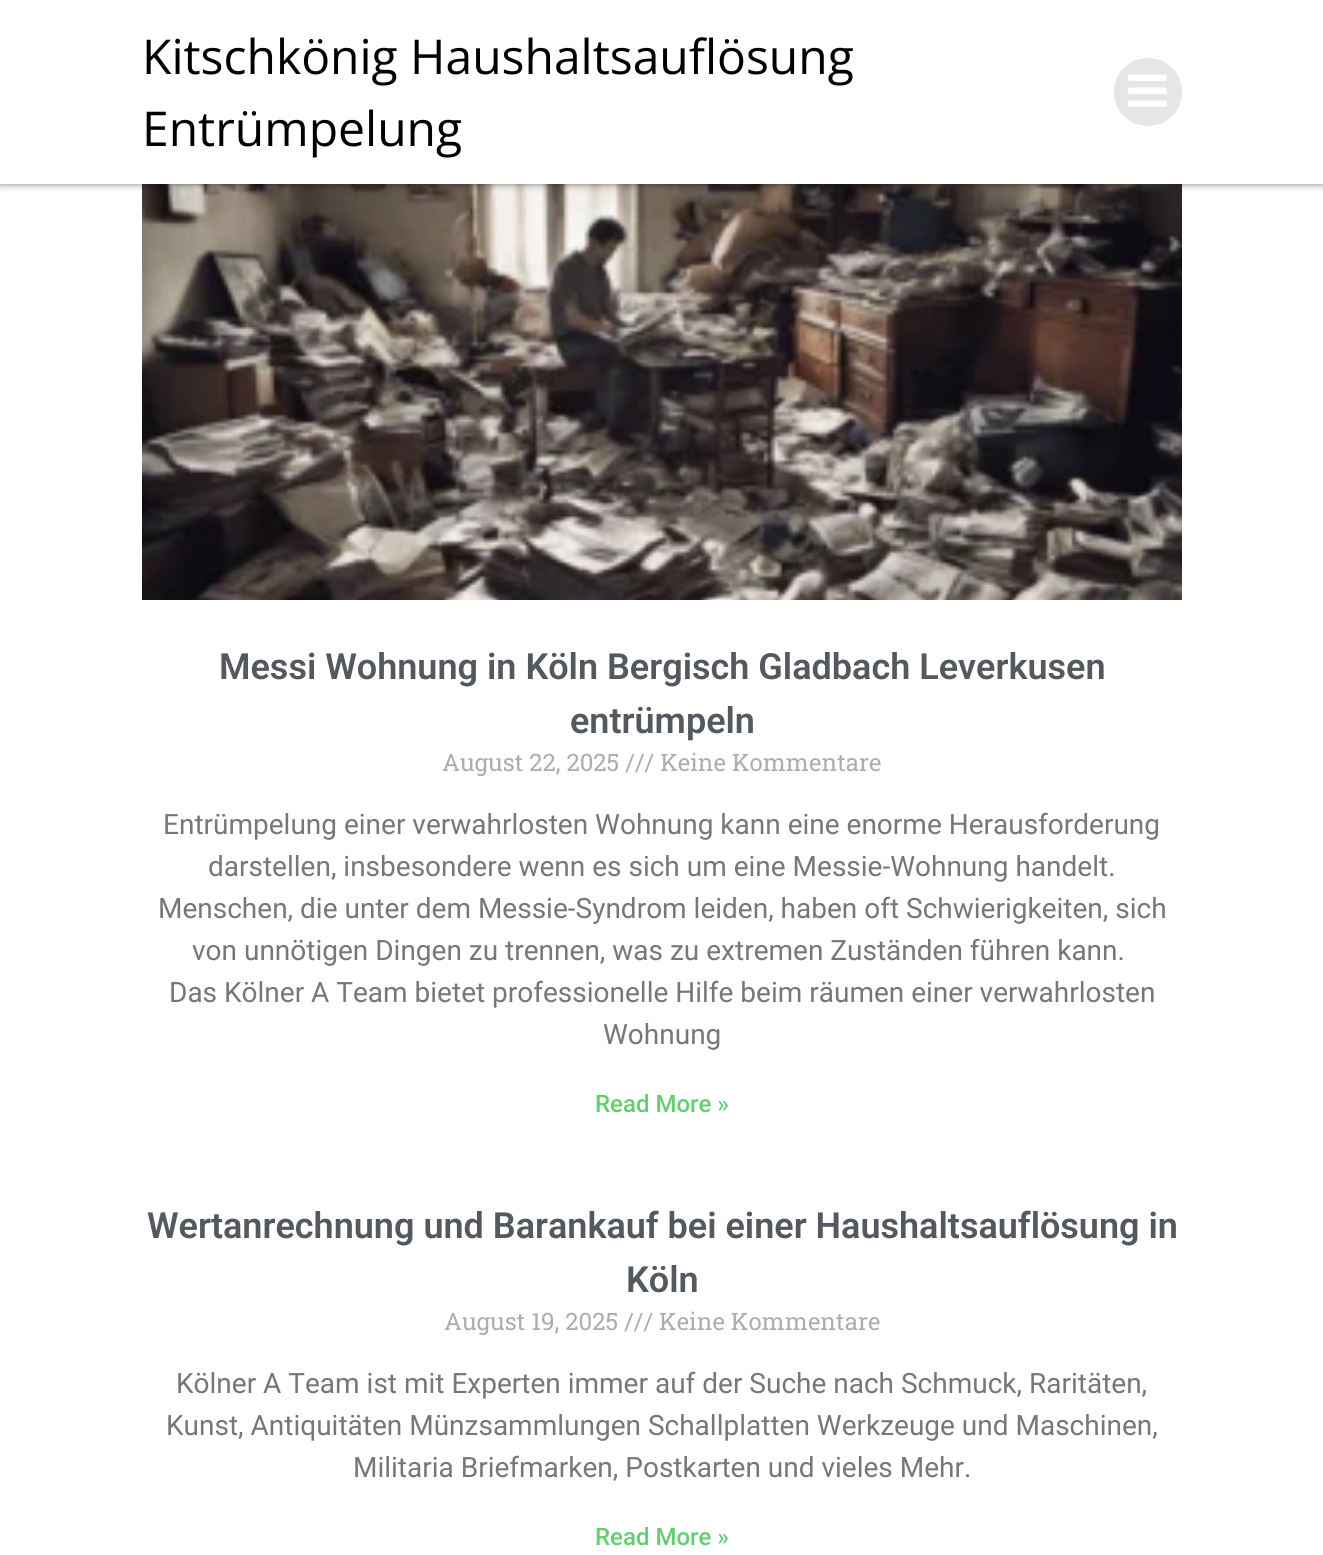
#include <cairo.h>
#include <math.h>
#include <stddef.h>


static void set_color(cairo_t *cr, unsigned color) {
    cairo_set_source_rgb(cr, (color >> 16) / 255.0, (color >> 8 & 255) / 255.0, (color & 255) / 255.0);
}

static void draw_text(cairo_t *cr, double x, double y, const char *s, const char *family, double size, int italic, int bold, unsigned color) {
    cairo_select_font_face(cr, family, italic ? CAIRO_FONT_SLANT_ITALIC : CAIRO_FONT_SLANT_NORMAL,
        bold ? CAIRO_FONT_WEIGHT_BOLD : CAIRO_FONT_WEIGHT_NORMAL);
    cairo_set_font_size(cr, size);
    set_color(cr, color);
    cairo_move_to(cr, x, y);
    cairo_show_text(cr, s);
}

static void fill_rect(cairo_t *cr, double x, double y, double w, double h, unsigned color) {
    set_color(cr, color);
    cairo_rectangle(cr, x, y, w, h);
    cairo_fill(cr);
}

static void rounded_rect(cairo_t *cr, double x, double y, double w, double h, double r) {
    cairo_new_sub_path(cr);
    cairo_arc(cr, x + w - r, y + h - r, r, 0, M_PI / 2);
    cairo_arc(cr, x + r, y + h - r, r, M_PI / 2, M_PI);
    cairo_arc(cr, x + r, y + r, r, M_PI, 1.5 * M_PI);
    cairo_arc(cr, x + w - r, y + r, r, 1.5 * M_PI, 2 * M_PI);
    cairo_close_path(cr);
}

static void draw_shadow(cairo_t *cr, double x, double y, double w, double h, double r, double blur, double alpha) {
    cairo_push_group_with_content(cr, CAIRO_CONTENT_ALPHA);
    cairo_set_operator(cr, CAIRO_OPERATOR_SOURCE);
    for (int i = 15; i >= -15 && fmin(w, h) + blur * i / 3 > 0; i -= 2) {
        double e = blur * i / 6;
        cairo_set_source_rgba(cr, 0, 0, 0, alpha * erfc((i - 1) / 8.5) / 2);
        rounded_rect(cr, x - e, y - e, w + 2 * e, h + 2 * e, fmax(0, fmin(r + e + blur * .6, fmin(w, h) / 2 + e)));
        cairo_fill(cr);
    }
    cairo_pattern_t *soft = cairo_pop_group(cr);
    cairo_mask(cr, soft);
    cairo_pattern_destroy(soft);
}

static void draw_image(cairo_t *cr, const char *path, double x, double y, double w, double h) {
    cairo_surface_t *image = cairo_image_surface_create_from_png(path);
    cairo_save(cr);
    cairo_set_source_surface(cr, image, x, y);
    cairo_rectangle(cr, x, y, w, h);
    cairo_fill(cr);
    cairo_restore(cr);
    cairo_surface_destroy(image);
}

int main(void) {
    cairo_surface_t *surface = cairo_image_surface_create(CAIRO_FORMAT_RGB24, 1323, 1555);
    cairo_t *cr = cairo_create(surface);
    cairo_font_options_t *options = cairo_font_options_create();
    cairo_font_options_set_hint_metrics(options, CAIRO_HINT_METRICS_OFF);
    cairo_font_options_set_hint_style(options, CAIRO_HINT_STYLE_NONE);
    cairo_set_font_options(cr, options);
    cairo_set_miter_limit(cr, 4);
    set_color(cr, 0xFFFFFF);
    cairo_paint(cr);
    draw_image(cr, "assets/img2.png", 142, 184, 1040, 416);
    set_color(cr, 0x000000);
    draw_shadow(cr, 0, 0, 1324, 184, 0, 4, 0.5);
    fill_rect(cr, 0, 0, 1323, 184, 0xFFFFFF);
    draw_text(cr, 142, 74, "Kitschkönig Haushaltsauflösung", "Open Sans", 48, 0, 0, 0x000000);
    draw_text(cr, 142, 146, "Entrümpelung", "Open Sans", 48, 0, 0, 0x000000);
    set_color(cr, 0xE6E6E6);
    cairo_new_path(cr);
    cairo_arc(cr, 1148, 92, 34, 0, 2 * M_PI);
    cairo_fill(cr);
    draw_image(cr, "assets/img1.png", 1128, 74, 39, 33);
    draw_text(cr, 219, 679, "Messi Wohnung in Köln Bergisch Gladbach Leverkusen", "Roboto SemiBold", 36, 0, 0, 0x54595F);
    draw_text(cr, 570, 733, "entrümpeln", "Roboto SemiBold", 36, 0, 0, 0x54595F);
    draw_text(cr, 442, 771, "August 22, 2025 /// Keine Kommentare", "Roboto Slab", 24, 0, 0, 0xADADAD);
    draw_text(cr, 163, 834, "Entrümpelung einer verwahrlosten Wohnung kann eine enorme Herausforderung", "Roboto", 28, 0, 0, 0x777777);
    draw_text(cr, 208, 876, "darstellen, insbesondere wenn es sich um eine Messie-Wohnung handelt.", "Roboto", 28, 0, 0, 0x777777);
    draw_text(cr, 158, 918, "Menschen, die unter dem Messie-Syndrom leiden, haben oft Schwierigkeiten, sich", "Roboto", 28, 0, 0, 0x777777);
    draw_text(cr, 192, 960, "von unnötigen Dingen zu trennen, was zu extremen Zuständen führen kann.", "Roboto", 28, 0, 0, 0x777777);
    draw_text(cr, 169, 1002, "Das Kölner A Team bietet professionelle Hilfe beim räumen einer verwahrlosten", "Roboto", 28, 0, 0, 0x777777);
    draw_text(cr, 603, 1044, "Wohnung", "Roboto", 28, 0, 0, 0x777777);
    draw_text(cr, 595, 1112, "Read More »", "Roboto Medium", 24, 0, 0, 0x61CE70);
    draw_text(cr, 147, 1238, "Wertanrechnung und Barankauf bei einer Haushaltsauflösung in", "Roboto SemiBold", 36, 0, 0, 0x54595F);
    draw_text(cr, 626, 1292, "Köln", "Roboto SemiBold", 36, 0, 0, 0x54595F);
    draw_text(cr, 444, 1330, "August 19, 2025 /// Keine Kommentare", "Roboto Slab", 24, 0, 0, 0xADADAD);
    draw_text(cr, 176, 1393, "Kölner A Team ist mit Experten immer auf der Suche nach Schmuck, Raritäten,", "Roboto", 28, 0, 0, 0x777777);
    draw_text(cr, 166, 1435, "Kunst, Antiquitäten Münzsammlungen Schallplatten Werkzeuge und Maschinen,", "Roboto", 28, 0, 0, 0x777777);
    draw_text(cr, 353, 1477, "Militaria Briefmarken, Postkarten und vieles Mehr.", "Roboto", 28, 0, 0, 0x777777);
    draw_text(cr, 595, 1545, "Read More »", "Roboto Medium", 24, 0, 0, 0x61CE70);
    cairo_surface_write_to_png(surface, "output.png");
    cairo_font_options_destroy(options);
    cairo_destroy(cr);
    cairo_surface_destroy(surface);
    return 0;
}
